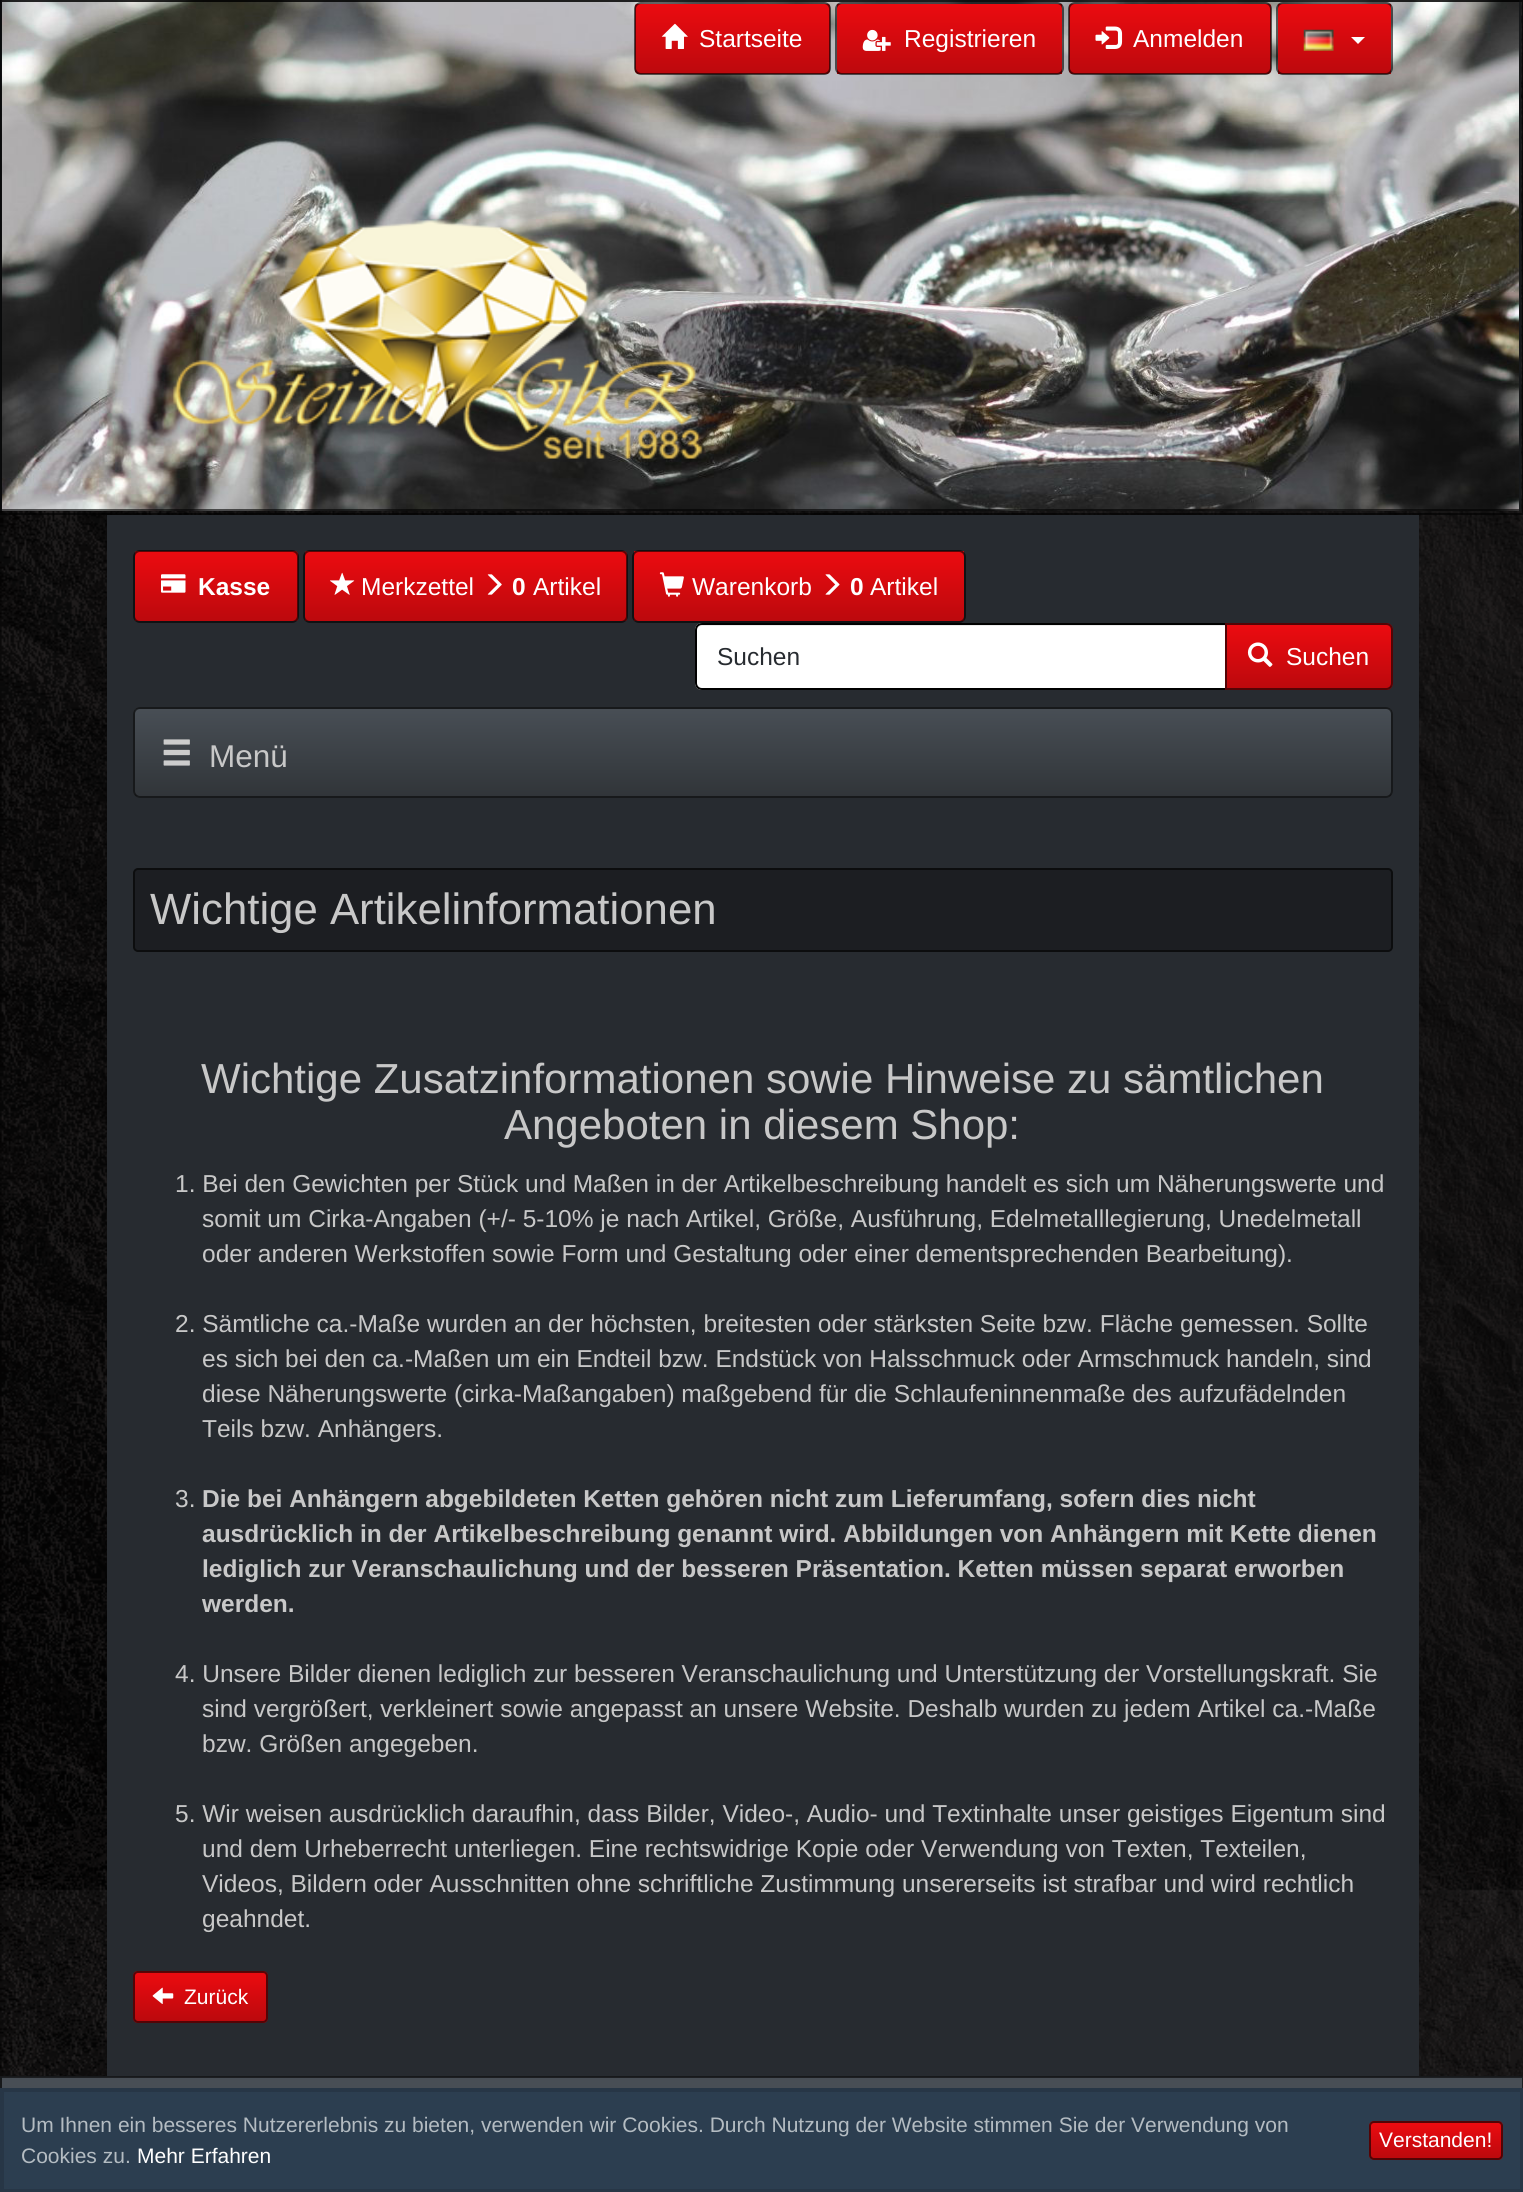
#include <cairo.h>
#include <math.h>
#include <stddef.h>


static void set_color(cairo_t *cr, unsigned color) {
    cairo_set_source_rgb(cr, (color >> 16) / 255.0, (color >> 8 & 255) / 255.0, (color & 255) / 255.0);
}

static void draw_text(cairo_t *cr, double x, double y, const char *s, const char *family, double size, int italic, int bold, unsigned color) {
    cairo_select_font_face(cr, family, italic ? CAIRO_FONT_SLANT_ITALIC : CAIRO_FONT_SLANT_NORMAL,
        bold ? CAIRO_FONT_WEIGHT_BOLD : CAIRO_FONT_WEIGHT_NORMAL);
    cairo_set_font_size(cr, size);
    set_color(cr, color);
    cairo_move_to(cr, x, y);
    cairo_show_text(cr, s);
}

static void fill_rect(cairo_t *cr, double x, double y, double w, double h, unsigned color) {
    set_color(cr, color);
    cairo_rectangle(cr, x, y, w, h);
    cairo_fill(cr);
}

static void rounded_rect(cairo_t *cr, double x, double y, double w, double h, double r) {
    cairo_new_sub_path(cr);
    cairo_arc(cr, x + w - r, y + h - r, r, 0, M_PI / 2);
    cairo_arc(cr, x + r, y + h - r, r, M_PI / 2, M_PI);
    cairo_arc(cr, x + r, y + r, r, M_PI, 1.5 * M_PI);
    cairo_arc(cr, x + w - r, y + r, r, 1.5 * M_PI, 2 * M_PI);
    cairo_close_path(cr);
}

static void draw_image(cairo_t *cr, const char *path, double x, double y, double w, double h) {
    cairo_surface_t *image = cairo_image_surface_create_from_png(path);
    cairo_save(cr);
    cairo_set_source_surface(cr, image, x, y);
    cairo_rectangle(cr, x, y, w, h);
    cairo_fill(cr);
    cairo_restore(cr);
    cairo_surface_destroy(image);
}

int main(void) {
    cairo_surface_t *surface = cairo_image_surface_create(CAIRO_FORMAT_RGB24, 1523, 2192);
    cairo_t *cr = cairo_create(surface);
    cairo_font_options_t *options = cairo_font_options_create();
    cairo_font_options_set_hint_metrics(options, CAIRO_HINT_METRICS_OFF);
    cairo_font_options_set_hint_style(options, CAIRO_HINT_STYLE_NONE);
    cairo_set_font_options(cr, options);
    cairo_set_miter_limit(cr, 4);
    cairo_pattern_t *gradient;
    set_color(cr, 0xFFFFFF);
    cairo_paint(cr);
    draw_image(cr, "assets/img1.png", 0, 0, 1523, 2076);
    fill_rect(cr, 0, 0, 1521, 511, 0x3A3F44);
    draw_image(cr, "assets/img2.png", 1, 0, 1518, 511);
    cairo_rectangle(cr, 1, 1, 1519, 509);
    cairo_set_source_rgba(cr, 0, 0, 0, 0.6);
    cairo_stroke(cr);
    cairo_rectangle(cr, 1, 1, 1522, 513);
    cairo_stroke(cr);
    cairo_save(cr);
    rounded_rect(cr, 634, 2, 197, 73, 7);
    cairo_clip(cr);
    gradient = cairo_pattern_create_linear(732, 3.5, 732, 74);
    cairo_pattern_add_color_stop_rgba(gradient, 0, 0.925, 0.043, 0.063, 1);
    cairo_pattern_add_color_stop_rgba(gradient, 0.6, 0.812, 0.039, 0.055, 1);
    cairo_pattern_add_color_stop_rgba(gradient, 1, 0.737, 0.035, 0.051, 1);
    cairo_set_source(cr, gradient);
    cairo_pattern_destroy(gradient);
    cairo_rectangle(cr, 635, 4, 195, 70);
    cairo_fill(cr);
    cairo_restore(cr);
    rounded_rect(cr, 635, 3, 195, 71, 6);
    cairo_stroke(cr);
    draw_image(cr, "assets/img3.png", 661, 23, 27, 26);
    draw_text(cr, 699, 47, "Startseite", "Liberation Sans", 24.5, 0, 0, 0xFFFFFF);
    gradient = cairo_pattern_create_linear(949, 3.5, 949, 74);
    cairo_pattern_add_color_stop_rgba(gradient, 0, 0.925, 0.043, 0.063, 1);
    cairo_pattern_add_color_stop_rgba(gradient, 0.6, 0.812, 0.039, 0.055, 1);
    cairo_pattern_add_color_stop_rgba(gradient, 1, 0.737, 0.035, 0.051, 1);
    cairo_set_source(cr, gradient);
    cairo_pattern_destroy(gradient);
    cairo_rectangle(cr, 837, 4, 225, 70);
    cairo_fill(cr);
    rounded_rect(cr, 836, 3, 227, 71, 6);
    cairo_set_source_rgba(cr, 0, 0, 0, 0.6);
    cairo_stroke(cr);
    draw_image(cr, "assets/img4.png", 862, 29, 29, 22);
    draw_text(cr, 904, 47, "Registrieren", "Liberation Sans", 24.5, 0, 0, 0xFFFFFF);
    cairo_save(cr);
    rounded_rect(cr, 1068, 2, 204, 73, 7);
    cairo_clip(cr);
    gradient = cairo_pattern_create_linear(1170, 3.5, 1170, 74);
    cairo_pattern_add_color_stop_rgba(gradient, 0, 0.925, 0.043, 0.063, 1);
    cairo_pattern_add_color_stop_rgba(gradient, 0.6, 0.812, 0.039, 0.055, 1);
    cairo_pattern_add_color_stop_rgba(gradient, 1, 0.737, 0.035, 0.051, 1);
    cairo_set_source(cr, gradient);
    cairo_pattern_destroy(gradient);
    cairo_rectangle(cr, 1069, 4, 202, 70);
    cairo_fill(cr);
    cairo_restore(cr);
    rounded_rect(cr, 1069, 3, 202, 71, 6);
    cairo_set_source_rgba(cr, 0, 0, 0, 0.6);
    cairo_stroke(cr);
    draw_image(cr, "assets/img5.png", 1095, 26, 28, 23);
    draw_text(cr, 1133, 47, "Anmelden", "Liberation Sans", 24.5, 0, 0, 0xFFFFFF);
    gradient = cairo_pattern_create_linear(1334, 3.5, 1334, 74);
    cairo_pattern_add_color_stop_rgba(gradient, 0, 0.925, 0.043, 0.063, 1);
    cairo_pattern_add_color_stop_rgba(gradient, 0.6, 0.812, 0.039, 0.055, 1);
    cairo_pattern_add_color_stop_rgba(gradient, 1, 0.737, 0.035, 0.051, 1);
    cairo_set_source(cr, gradient);
    cairo_pattern_destroy(gradient);
    cairo_rectangle(cr, 1278, 4, 113, 70);
    cairo_fill(cr);
    rounded_rect(cr, 1277, 3, 115, 71, 6);
    cairo_set_source_rgba(cr, 0, 0, 0, 0.6);
    cairo_stroke(cr);
    draw_image(cr, "assets/img6.png", 1303, 29, 31, 22);
    set_color(cr, 0xFFFFFF);
    cairo_new_path(cr);
    cairo_move_to(cr, 1351, 37);
    cairo_line_to(cr, 1365, 37);
    cairo_line_to(cr, 1358, 44);
    cairo_close_path(cr);
    cairo_fill(cr);
    draw_image(cr, "assets/img7.png", 172, 220, 531, 239);
    fill_rect(cr, 107, 515, 1312, 1561, 0x272B30);
    cairo_save(cr);
    rounded_rect(cr, 133, 550, 166, 73, 7);
    cairo_clip(cr);
    gradient = cairo_pattern_create_linear(216, 551, 216, 621);
    cairo_pattern_add_color_stop_rgba(gradient, 0, 0.925, 0.043, 0.063, 1);
    cairo_pattern_add_color_stop_rgba(gradient, 0.6, 0.812, 0.039, 0.055, 1);
    cairo_pattern_add_color_stop_rgba(gradient, 1, 0.737, 0.035, 0.051, 1);
    cairo_set_source(cr, gradient);
    cairo_pattern_destroy(gradient);
    cairo_rectangle(cr, 135, 551, 163, 70);
    cairo_fill(cr);
    cairo_restore(cr);
    rounded_rect(cr, 134, 551, 164, 71, 6);
    cairo_set_source_rgba(cr, 0, 0, 0, 0.6);
    cairo_stroke(cr);
    draw_image(cr, "assets/img8.png", 161, 574, 25, 19);
    draw_text(cr, 198, 595, "Kasse", "Liberation Sans", 24.5, 0, 1, 0xFFFFFF);
    cairo_save(cr);
    rounded_rect(cr, 303, 550, 325, 73, 7);
    cairo_clip(cr);
    gradient = cairo_pattern_create_linear(466, 551, 466, 621);
    cairo_pattern_add_color_stop_rgba(gradient, 0, 0.925, 0.043, 0.063, 1);
    cairo_pattern_add_color_stop_rgba(gradient, 0.6, 0.812, 0.039, 0.055, 1);
    cairo_pattern_add_color_stop_rgba(gradient, 1, 0.737, 0.035, 0.051, 1);
    cairo_set_source(cr, gradient);
    cairo_pattern_destroy(gradient);
    cairo_rectangle(cr, 305, 551, 322, 70);
    cairo_fill(cr);
    cairo_restore(cr);
    rounded_rect(cr, 304, 551, 323, 71, 6);
    cairo_set_source_rgba(cr, 0, 0, 0, 0.6);
    cairo_stroke(cr);
    draw_image(cr, "assets/img9.png", 330, 572, 25, 23);
    draw_text(cr, 361, 595, "Merkzettel", "Liberation Sans", 24.5, 0, 0, 0xFFFFFF);
    draw_image(cr, "assets/img10.png", 487, 574, 15, 21);
    draw_text(cr, 512, 595, "0", "Liberation Sans", 24.5, 0, 1, 0xFFFFFF);
    draw_text(cr, 533, 595, "Artikel", "Liberation Sans", 24.5, 0, 0, 0xFFFFFF);
    gradient = cairo_pattern_create_linear(799, 551, 799, 621);
    cairo_pattern_add_color_stop_rgba(gradient, 0, 0.925, 0.043, 0.063, 1);
    cairo_pattern_add_color_stop_rgba(gradient, 0.6, 0.812, 0.039, 0.055, 1);
    cairo_pattern_add_color_stop_rgba(gradient, 1, 0.737, 0.035, 0.051, 1);
    cairo_set_source(cr, gradient);
    cairo_pattern_destroy(gradient);
    cairo_rectangle(cr, 634, 551, 330, 70);
    cairo_fill(cr);
    rounded_rect(cr, 633, 551, 332, 71, 6);
    cairo_set_source_rgba(cr, 0, 0, 0, 0.6);
    cairo_stroke(cr);
    draw_image(cr, "assets/img11.png", 659, 572, 25, 25);
    draw_text(cr, 692, 595, "Warenkorb", "Liberation Sans", 24.5, 0, 0, 0xFFFFFF);
    draw_image(cr, "assets/img12.png", 825, 574, 15, 21);
    draw_text(cr, 850, 595, "0", "Liberation Sans", 24.5, 0, 1, 0xFFFFFF);
    draw_text(cr, 870, 595, "Artikel", "Liberation Sans", 24.5, 0, 0, 0xFFFFFF);
    cairo_new_path(cr);
    cairo_move_to(cr, 702, 623);
    cairo_line_to(cr, 1227, 623);
    cairo_line_to(cr, 1227, 690);
    cairo_line_to(cr, 702, 690);
    cairo_curve_to(cr, 698, 690, 695, 687, 695, 683);
    cairo_line_to(cr, 695, 630);
    cairo_curve_to(cr, 695, 626, 698, 623, 702, 623);
    cairo_close_path(cr);
    cairo_fill(cr);
    set_color(cr, 0xECECEC);
    cairo_new_path(cr);
    cairo_move_to(cr, 702, 626);
    cairo_line_to(cr, 1225, 626);
    cairo_line_to(cr, 1225, 625);
    cairo_line_to(cr, 702, 625);
    cairo_curve_to(cr, 700, 625, 698, 627, 697, 629);
    cairo_curve_to(cr, 698, 627, 700, 626, 702, 626);
    cairo_close_path(cr);
    cairo_fill(cr);
    cairo_new_path(cr);
    cairo_move_to(cr, 702, 624);
    cairo_line_to(cr, 1226, 624);
    cairo_line_to(cr, 1226, 689);
    cairo_line_to(cr, 702, 689);
    cairo_curve_to(cr, 698.5, 689, 696, 686.5, 696, 683);
    cairo_line_to(cr, 696, 630);
    cairo_curve_to(cr, 696, 626.5, 698.5, 624, 702, 624);
    cairo_close_path(cr);
    set_color(cr, 0x000000);
    cairo_stroke(cr);
    draw_text(cr, 717, 665, "Suchen", "Liberation Sans", 24.5, 0, 0, 0x272B30);
    set_color(cr, 0xCF0A0E);
    cairo_new_path(cr);
    cairo_move_to(cr, 1225, 623);
    cairo_line_to(cr, 1386, 623);
    cairo_curve_to(cr, 1390, 623, 1393, 626, 1393, 630);
    cairo_line_to(cr, 1393, 683);
    cairo_curve_to(cr, 1393, 687, 1390, 690, 1386, 690);
    cairo_line_to(cr, 1225, 690);
    cairo_close_path(cr);
    cairo_fill(cr);
    gradient = cairo_pattern_create_linear(1309, 625, 1309, 688);
    cairo_pattern_add_color_stop_rgba(gradient, 0, 0.925, 0.043, 0.063, 1);
    cairo_pattern_add_color_stop_rgba(gradient, 0.6, 0.812, 0.039, 0.055, 1);
    cairo_pattern_add_color_stop_rgba(gradient, 1, 0.737, 0.035, 0.051, 1);
    cairo_set_source(cr, gradient);
    cairo_pattern_destroy(gradient);
    cairo_rectangle(cr, 1227, 625, 164, 63);
    cairo_fill(cr);
    cairo_new_path(cr);
    cairo_move_to(cr, 1226, 624);
    cairo_line_to(cr, 1386, 624);
    cairo_curve_to(cr, 1389.5, 624, 1392, 626.5, 1392, 630);
    cairo_line_to(cr, 1392, 683);
    cairo_curve_to(cr, 1392, 686.5, 1389.5, 689, 1386, 689);
    cairo_line_to(cr, 1226, 689);
    cairo_close_path(cr);
    cairo_set_source_rgba(cr, 0, 0, 0, 0.6);
    cairo_stroke(cr);
    draw_image(cr, "assets/img13.png", 1247, 642, 26, 25);
    draw_text(cr, 1286, 665, "Suchen", "Liberation Sans", 24.5, 0, 0, 0xFFFFFF);
    set_color(cr, 0x3A3F44);
    rounded_rect(cr, 133, 707, 1260, 91, 7);
    cairo_fill(cr);
    gradient = cairo_pattern_create_linear(763, 709, 763, 796);
    cairo_pattern_add_color_stop_rgba(gradient, 0, 0.282, 0.306, 0.333, 1);
    cairo_pattern_add_color_stop_rgba(gradient, 0.6, 0.227, 0.247, 0.267, 1);
    cairo_pattern_add_color_stop_rgba(gradient, 1, 0.192, 0.208, 0.224, 1);
    cairo_set_source(cr, gradient);
    cairo_pattern_destroy(gradient);
    cairo_rectangle(cr, 135, 709, 1256, 87);
    cairo_fill(cr);
    rounded_rect(cr, 134, 708, 1258, 89, 6);
    cairo_set_source_rgba(cr, 0, 0, 0, 0.6);
    cairo_stroke(cr);
    draw_image(cr, "assets/img14.png", 163, 739, 27, 27);
    draw_text(cr, 209, 767, "Menü", "Liberation Sans", 31.5, 0, 0, 0xC8C8C8);
    set_color(cr, 0x1C1E22);
    rounded_rect(cr, 134, 869, 1258, 82, 4);
    cairo_fill_preserve(cr);
    set_color(cr, 0x0C0D0E);
    cairo_stroke(cr);
    draw_text(cr, 150, 924, "Wichtige Artikelinformationen", "Liberation Sans", 43.75, 0, 0, 0xC8C8C8);
    draw_text(cr, 201, 1093, "Wichtige Zusatzinformationen sowie Hinweise zu sämtlichen", "Liberation Sans", 42, 0, 0, 0xC8C8C8);
    draw_text(cr, 504, 1139, "Angeboten in diesem Shop:", "Liberation Sans", 42, 0, 0, 0xC8C8C8);
    draw_text(cr, 175, 1192, "1. Bei den Gewichten per Stück und Maßen in der Artikelbeschreibung handelt es sich um Näherungswerte und", "Liberation Sans", 24.5, 0, 0, 0xC8C8C8);
    draw_text(cr, 202, 1227, "somit um Cirka-Angaben (+/- 5-10% je nach Artikel, Größe, Ausführung, Edelmetalllegierung, Unedelmetall", "Liberation Sans", 24.5, 0, 0, 0xC8C8C8);
    draw_text(cr, 202, 1262, "oder anderen Werkstoffen sowie Form und Gestaltung oder einer dementsprechenden Bearbeitung).", "Liberation Sans", 24.5, 0, 0, 0xC8C8C8);
    draw_text(cr, 175, 1332, "2. Sämtliche ca.-Maße wurden an der höchsten, breitesten oder stärksten Seite bzw. Fläche gemessen. Sollte", "Liberation Sans", 24.5, 0, 0, 0xC8C8C8);
    draw_text(cr, 202, 1367, "es sich bei den ca.-Maßen um ein Endteil bzw. Endstück von Halsschmuck oder Armschmuck handeln, sind", "Liberation Sans", 24.5, 0, 0, 0xC8C8C8);
    draw_text(cr, 202, 1402, "diese Näherungswerte (cirka-Maßangaben) maßgebend für die Schlaufeninnenmaße des aufzufädelnden", "Liberation Sans", 24.5, 0, 0, 0xC8C8C8);
    draw_text(cr, 202, 1437, "Teils bzw. Anhängers.", "Liberation Sans", 24.5, 0, 0, 0xC8C8C8);
    draw_text(cr, 175, 1507, "3.", "Liberation Sans", 24.5, 0, 0, 0xC8C8C8);
    draw_text(cr, 202, 1507, "Die bei Anhängern abgebildeten Ketten gehören nicht zum Lieferumfang, sofern dies nicht", "Liberation Sans", 24.5, 0, 1, 0xC8C8C8);
    draw_text(cr, 202, 1542, "ausdrücklich in der Artikelbeschreibung genannt wird. Abbildungen von Anhängern mit Kette dienen", "Liberation Sans", 24.5, 0, 1, 0xC8C8C8);
    draw_text(cr, 202, 1577, "lediglich zur Veranschaulichung und der besseren Präsentation. Ketten müssen separat erworben", "Liberation Sans", 24.5, 0, 1, 0xC8C8C8);
    draw_text(cr, 202, 1612, "werden.", "Liberation Sans", 24.5, 0, 1, 0xC8C8C8);
    draw_text(cr, 175, 1682, "4. Unsere Bilder dienen lediglich zur besseren Veranschaulichung und Unterstützung der Vorstellungskraft. Sie", "Liberation Sans", 24.5, 0, 0, 0xC8C8C8);
    draw_text(cr, 202, 1717, "sind vergrößert, verkleinert sowie angepasst an unsere Website. Deshalb wurden zu jedem Artikel ca.-Maße", "Liberation Sans", 24.5, 0, 0, 0xC8C8C8);
    draw_text(cr, 202, 1752, "bzw. Größen angegeben.", "Liberation Sans", 24.5, 0, 0, 0xC8C8C8);
    draw_text(cr, 175, 1822, "5. Wir weisen ausdrücklich daraufhin, dass Bilder, Video-, Audio- und Textinhalte unser geistiges Eigentum sind", "Liberation Sans", 24.5, 0, 0, 0xC8C8C8);
    draw_text(cr, 202, 1857, "und dem Urheberrecht unterliegen. Eine rechtswidrige Kopie oder Verwendung von Texten, Texteilen,", "Liberation Sans", 24.5, 0, 0, 0xC8C8C8);
    draw_text(cr, 202, 1892, "Videos, Bildern oder Ausschnitten ohne schriftliche Zustimmung unsererseits ist strafbar und wird rechtlich", "Liberation Sans", 24.5, 0, 0, 0xC8C8C8);
    draw_text(cr, 202, 1927, "geahndet.", "Liberation Sans", 24.5, 0, 0, 0xC8C8C8);
    set_color(cr, 0xCF0A0E);
    rounded_rect(cr, 133, 1971, 135, 52, 5);
    cairo_fill(cr);
    gradient = cairo_pattern_create_linear(200, 1972, 200, 2021);
    cairo_pattern_add_color_stop_rgba(gradient, 0, 0.925, 0.043, 0.063, 1);
    cairo_pattern_add_color_stop_rgba(gradient, 0.6, 0.812, 0.039, 0.055, 1);
    cairo_pattern_add_color_stop_rgba(gradient, 1, 0.737, 0.035, 0.051, 1);
    cairo_set_source(cr, gradient);
    cairo_pattern_destroy(gradient);
    cairo_rectangle(cr, 135, 1972, 131, 49);
    cairo_fill(cr);
    rounded_rect(cr, 134, 1972, 133, 50, 4);
    cairo_set_source_rgba(cr, 0, 0, 0, 0.6);
    cairo_stroke(cr);
    draw_image(cr, "assets/img15.png", 152, 1987, 22, 17);
    draw_text(cr, 184, 2004, "Zurück", "Liberation Sans", 21, 0, 0, 0xFFFFFF);
    fill_rect(cr, 0, 2076, 1523, 12, 0x3A3F44);
    gradient = cairo_pattern_create_linear(762, 2077, 762, 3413);
    cairo_pattern_add_color_stop_rgba(gradient, 0, 0.282, 0.306, 0.333, 1);
    cairo_pattern_add_color_stop_rgba(gradient, 0.6, 0.227, 0.247, 0.267, 1);
    cairo_pattern_add_color_stop_rgba(gradient, 1, 0.192, 0.208, 0.224, 1);
    cairo_set_source(cr, gradient);
    cairo_pattern_destroy(gradient);
    cairo_rectangle(cr, 2, 2077, 1521, 11);
    cairo_fill(cr);
    cairo_rectangle(cr, 1, 2077, 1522, 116);
    cairo_set_source_rgba(cr, 0, 0, 0, 0.6);
    cairo_stroke(cr);
    set_color(cr, 0x2C3E50);
    cairo_rectangle(cr, 2, 2090, 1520, 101);
    cairo_fill_preserve(cr);
    set_color(cr, 0x273646);
    cairo_set_line_width(cr, 4);
    cairo_stroke(cr);
    draw_text(cr, 21, 2132, "Um Ihnen ein besseres Nutzererlebnis zu bieten, verwenden wir Cookies. Durch Nutzung der Website stimmen Sie der Verwendung von", "Liberation Sans", 21, 0, 0, 0xB4BCC2);
    draw_text(cr, 21, 2163, "Cookies zu.", "Liberation Sans", 21, 0, 0, 0xB4BCC2);
    draw_text(cr, 137, 2163, "Mehr Erfahren", "Liberation Sans", 21, 0, 0, 0xFFFFFF);
    set_color(cr, 0xCF0A0E);
    rounded_rect(cr, 1369, 2121, 134, 39, 5);
    cairo_fill(cr);
    gradient = cairo_pattern_create_linear(1436, 2123, 1436, 2158);
    cairo_pattern_add_color_stop_rgba(gradient, 0, 0.925, 0.043, 0.063, 1);
    cairo_pattern_add_color_stop_rgba(gradient, 0.6, 0.812, 0.039, 0.055, 1);
    cairo_pattern_add_color_stop_rgba(gradient, 1, 0.737, 0.035, 0.051, 1);
    cairo_set_source(cr, gradient);
    cairo_pattern_destroy(gradient);
    cairo_rectangle(cr, 1370, 2123, 132, 35);
    cairo_fill(cr);
    rounded_rect(cr, 1370, 2122, 132, 37, 4);
    cairo_set_source_rgba(cr, 0, 0, 0, 0.6);
    cairo_set_line_width(cr, 2);
    cairo_stroke(cr);
    draw_text(cr, 1379, 2147, "Verstanden!", "Liberation Sans", 21, 0, 0, 0xFFFFFF);
    cairo_surface_write_to_png(surface, "output.png");
    cairo_font_options_destroy(options);
    cairo_destroy(cr);
    cairo_surface_destroy(surface);
    return 0;
}
